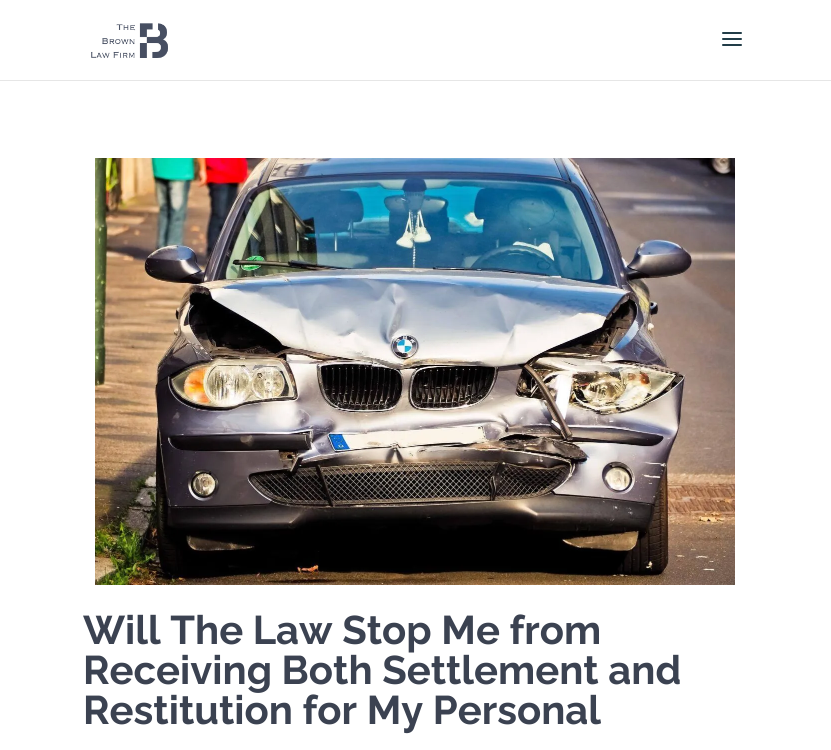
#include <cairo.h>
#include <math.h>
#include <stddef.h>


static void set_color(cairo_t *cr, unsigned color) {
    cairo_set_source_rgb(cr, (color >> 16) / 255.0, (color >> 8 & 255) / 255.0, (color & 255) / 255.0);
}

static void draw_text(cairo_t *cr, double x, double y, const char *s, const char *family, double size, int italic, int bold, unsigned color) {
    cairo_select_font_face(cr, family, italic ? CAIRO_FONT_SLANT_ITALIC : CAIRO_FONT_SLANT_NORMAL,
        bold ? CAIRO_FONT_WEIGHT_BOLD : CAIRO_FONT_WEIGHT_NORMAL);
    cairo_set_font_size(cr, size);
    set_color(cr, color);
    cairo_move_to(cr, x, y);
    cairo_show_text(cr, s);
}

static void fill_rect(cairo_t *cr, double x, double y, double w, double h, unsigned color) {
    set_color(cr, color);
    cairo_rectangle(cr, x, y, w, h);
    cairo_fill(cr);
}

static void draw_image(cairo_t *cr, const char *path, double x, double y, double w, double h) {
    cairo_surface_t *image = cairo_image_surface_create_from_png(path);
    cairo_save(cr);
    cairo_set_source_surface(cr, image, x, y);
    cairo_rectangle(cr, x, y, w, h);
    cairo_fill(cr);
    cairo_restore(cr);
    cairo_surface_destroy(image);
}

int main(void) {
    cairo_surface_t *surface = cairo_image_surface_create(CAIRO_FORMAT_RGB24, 831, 750);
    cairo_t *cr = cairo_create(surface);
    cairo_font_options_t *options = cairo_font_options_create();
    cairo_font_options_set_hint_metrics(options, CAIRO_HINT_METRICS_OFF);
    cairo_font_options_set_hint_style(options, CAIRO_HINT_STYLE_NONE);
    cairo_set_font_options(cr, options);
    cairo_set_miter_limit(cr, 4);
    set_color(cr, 0xFFFFFF);
    cairo_paint(cr);
    fill_rect(cr, 0, 80, 831, 1, 0xE6E6E6);
    draw_image(cr, "assets/img1.png", 91, 23, 77, 35);
    draw_image(cr, "assets/img2.png", 722, 32, 20, 14);
    draw_image(cr, "assets/img3.png", 95, 158, 640, 427);
    draw_text(cr, 83, 644, "Will The Law Stop Me from", "Raleway", 40, 0, 1, 0x3B4251);
    draw_text(cr, 83, 684, "Receiving Both Settlement and", "Raleway", 40, 0, 1, 0x3B4251);
    draw_text(cr, 83, 724, "Restitution for My Personal", "Raleway", 40, 0, 1, 0x3B4251);
    cairo_surface_write_to_png(surface, "output.png");
    cairo_font_options_destroy(options);
    cairo_destroy(cr);
    cairo_surface_destroy(surface);
    return 0;
}
